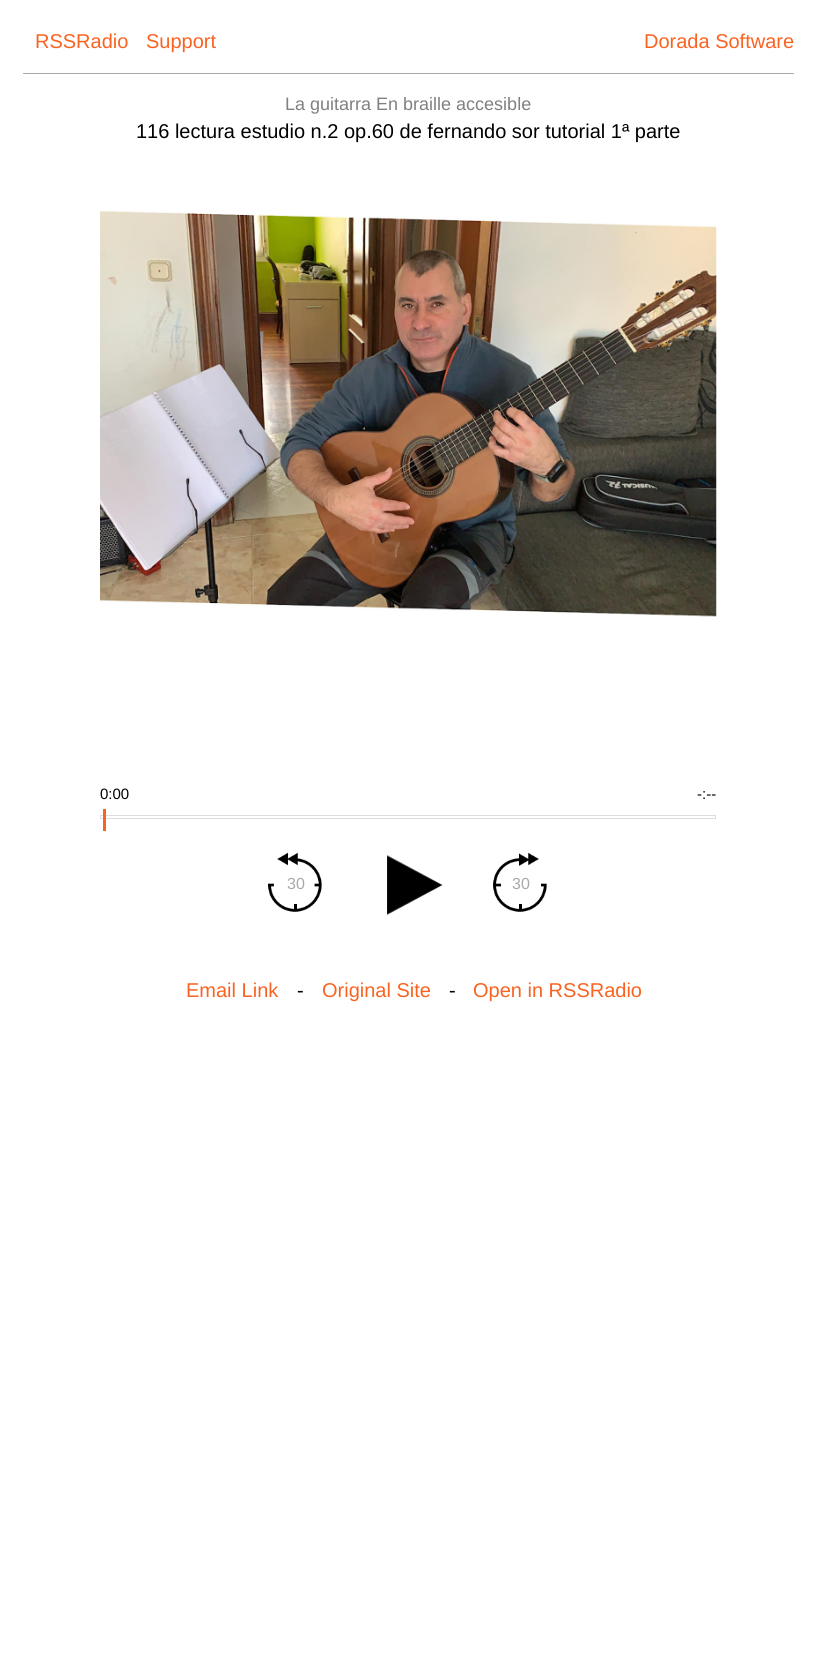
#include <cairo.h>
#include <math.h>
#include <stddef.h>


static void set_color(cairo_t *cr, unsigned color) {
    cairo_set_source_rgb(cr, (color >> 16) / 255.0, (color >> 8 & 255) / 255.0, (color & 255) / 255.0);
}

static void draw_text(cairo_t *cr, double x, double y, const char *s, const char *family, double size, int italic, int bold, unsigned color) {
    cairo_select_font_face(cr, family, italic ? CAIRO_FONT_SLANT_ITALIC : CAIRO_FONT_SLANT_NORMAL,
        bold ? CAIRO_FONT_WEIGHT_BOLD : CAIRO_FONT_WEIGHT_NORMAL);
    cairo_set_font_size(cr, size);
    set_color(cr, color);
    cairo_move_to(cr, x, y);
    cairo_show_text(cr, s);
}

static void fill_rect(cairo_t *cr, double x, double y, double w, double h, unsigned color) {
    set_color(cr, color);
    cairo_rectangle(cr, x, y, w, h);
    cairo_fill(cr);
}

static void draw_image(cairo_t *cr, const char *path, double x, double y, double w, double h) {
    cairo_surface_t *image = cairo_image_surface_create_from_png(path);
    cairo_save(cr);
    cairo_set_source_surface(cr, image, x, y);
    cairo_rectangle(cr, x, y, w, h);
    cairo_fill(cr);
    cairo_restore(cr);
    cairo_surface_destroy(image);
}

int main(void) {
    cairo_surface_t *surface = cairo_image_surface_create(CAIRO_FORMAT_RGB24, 816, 1667);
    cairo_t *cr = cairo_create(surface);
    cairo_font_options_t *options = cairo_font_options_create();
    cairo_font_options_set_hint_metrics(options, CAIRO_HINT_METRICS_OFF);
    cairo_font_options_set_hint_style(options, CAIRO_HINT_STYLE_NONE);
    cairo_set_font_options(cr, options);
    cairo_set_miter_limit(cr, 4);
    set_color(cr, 0xFFFFFF);
    cairo_paint(cr);
    fill_rect(cr, 23, 73, 771, 1, 0xA9A9A9);
    draw_text(cr, 35, 48, "RSSRadio", "Liberation Sans", 20, 0, 0, 0xF96321);
    draw_text(cr, 146, 48, "Support", "Liberation Sans", 20, 0, 0, 0xF96321);
    draw_text(cr, 644, 48, "Dorada Software", "Liberation Sans", 20, 0, 0, 0xF96321);
    draw_text(cr, 285, 110, "La guitarra En braille accesible", "Liberation Sans", 18, 0, 0, 0x808080);
    draw_text(cr, 136, 138, "116 lectura estudio n.2 op.60 de fernando sor tutorial 1ª parte", "Liberation Sans", 20, 0, 0, 0x000000);
    draw_image(cr, "assets/img1.png", 100, 211, 617, 406);
    draw_text(cr, 100, 799, "0:00", "Liberation Sans", 15, 0, 0, 0x000000);
    draw_text(cr, 697, 799, "-:--", "Liberation Sans", 15, 0, 0, 0x000000);
    cairo_rectangle(cr, 100.5, 815.5, 615, 3);
    set_color(cr, 0xDDDDDD);
    cairo_set_line_width(cr, 1);
    cairo_stroke(cr);
    fill_rect(cr, 103, 809, 3, 22, 0xF96321);
    draw_image(cr, "assets/img2.png", 268, 852, 54, 60);
    draw_text(cr, 287, 889, "30", "Liberation Sans", 16, 0, 0, 0xA9A9A9);
    draw_image(cr, "assets/img3.png", 387, 855, 56, 60);
    draw_image(cr, "assets/img4.png", 493, 852, 54, 60);
    draw_text(cr, 512, 889, "30", "Liberation Sans", 16, 0, 0, 0xA9A9A9);
    draw_text(cr, 186, 997, "Email Link", "Liberation Sans", 20, 0, 0, 0xF96321);
    draw_text(cr, 297, 997, "-", "Liberation Sans", 20, 0, 0, 0x000000);
    draw_text(cr, 322, 997, "Original Site", "Liberation Sans", 20, 0, 0, 0xF96321);
    draw_text(cr, 449, 997, "-", "Liberation Sans", 20, 0, 0, 0x000000);
    draw_text(cr, 473, 997, "Open in RSSRadio", "Liberation Sans", 20, 0, 0, 0xF96321);
    cairo_surface_write_to_png(surface, "output.png");
    cairo_font_options_destroy(options);
    cairo_destroy(cr);
    cairo_surface_destroy(surface);
    return 0;
}
